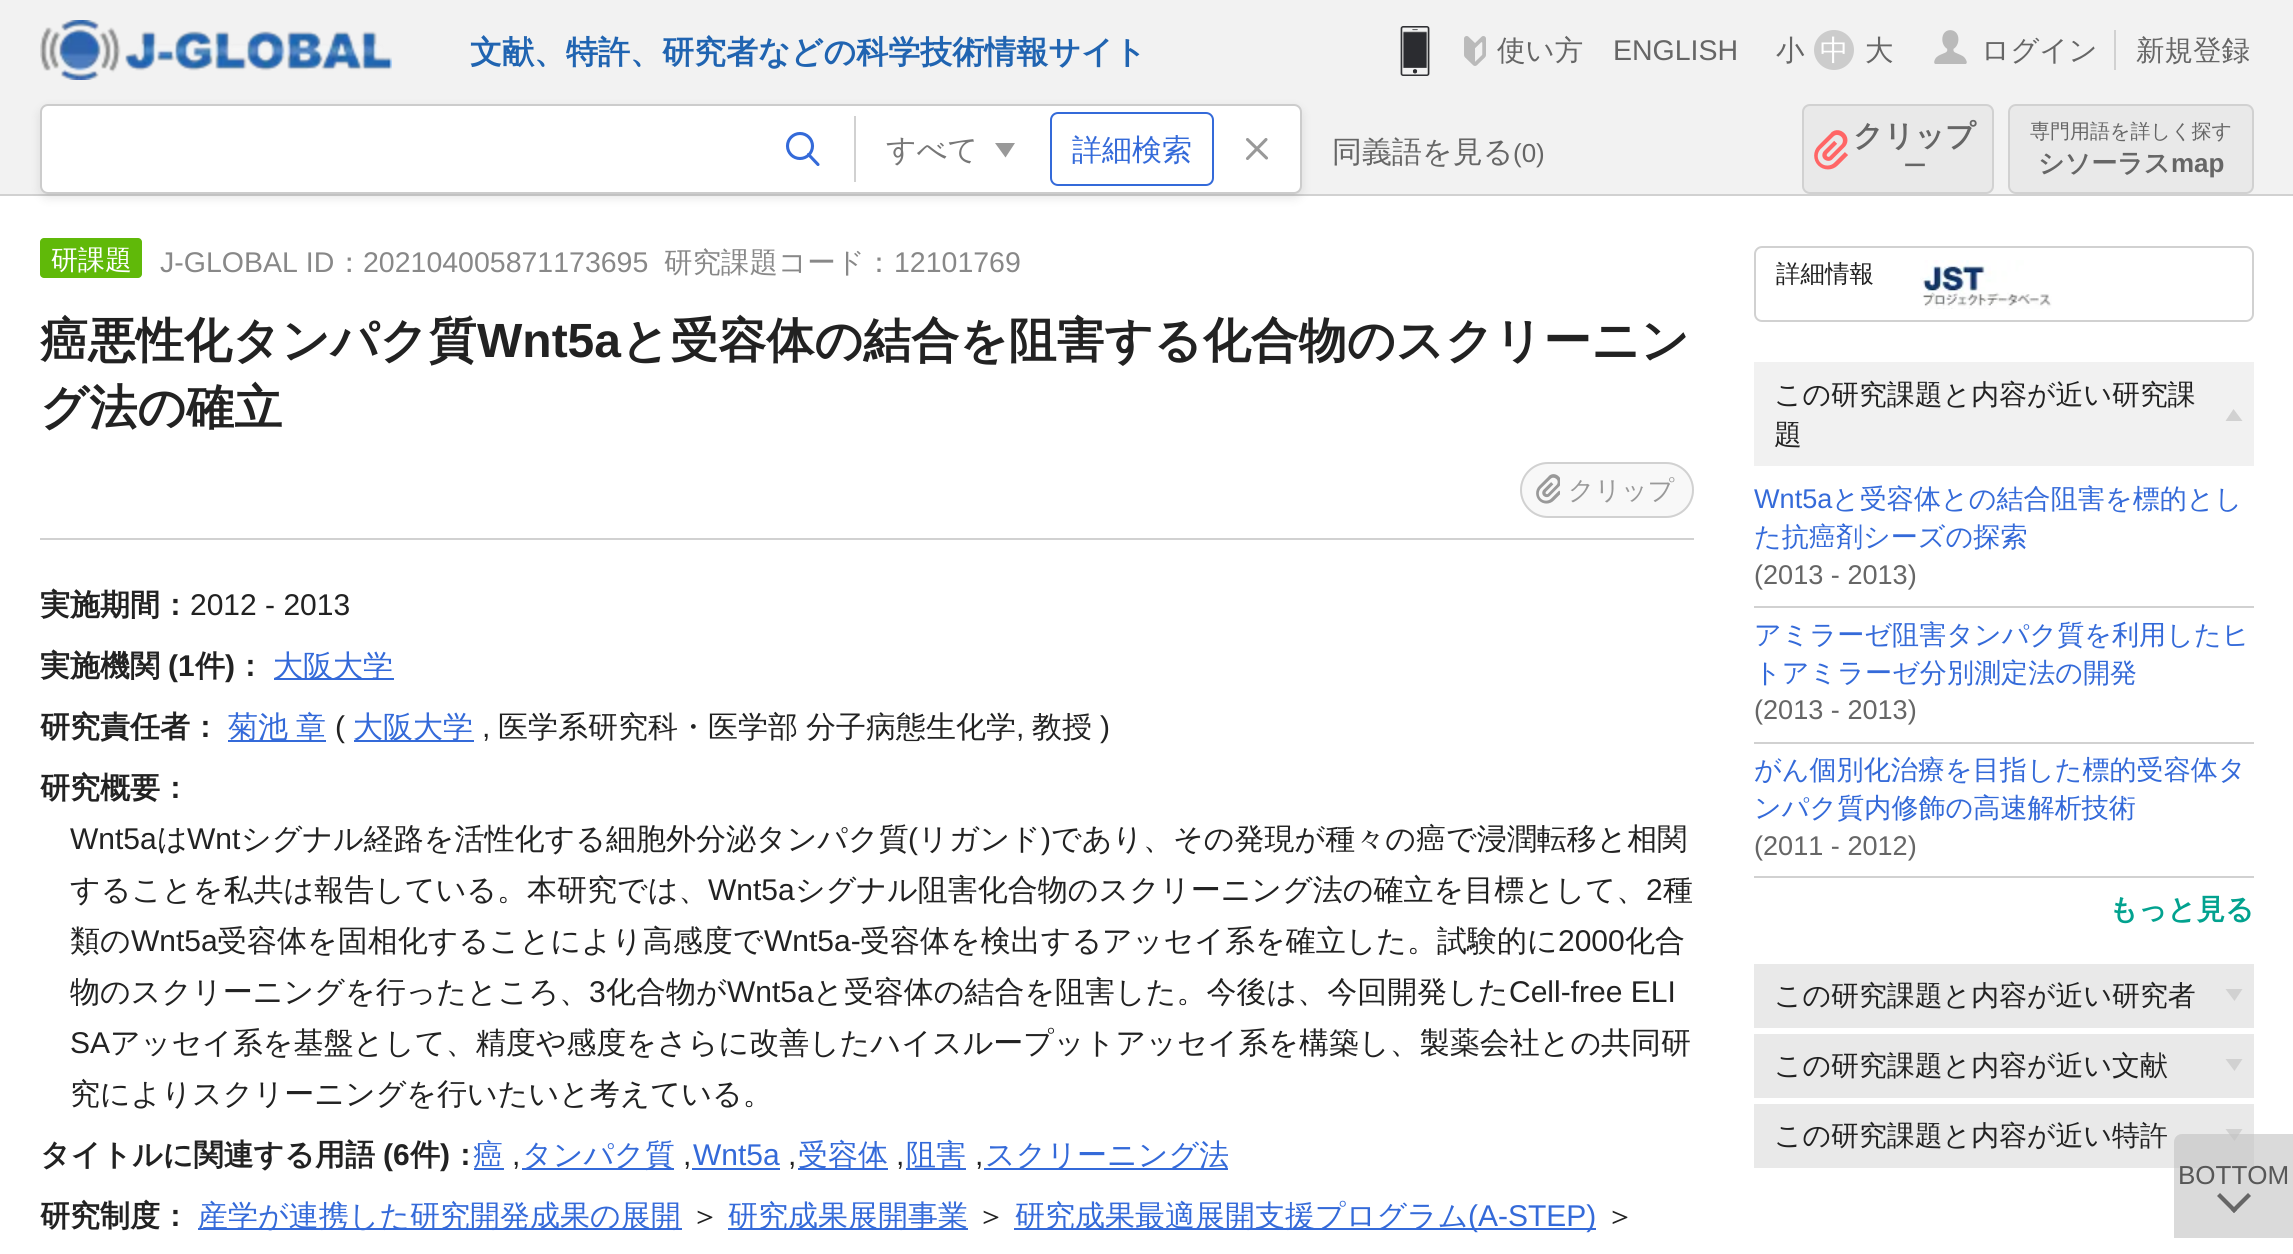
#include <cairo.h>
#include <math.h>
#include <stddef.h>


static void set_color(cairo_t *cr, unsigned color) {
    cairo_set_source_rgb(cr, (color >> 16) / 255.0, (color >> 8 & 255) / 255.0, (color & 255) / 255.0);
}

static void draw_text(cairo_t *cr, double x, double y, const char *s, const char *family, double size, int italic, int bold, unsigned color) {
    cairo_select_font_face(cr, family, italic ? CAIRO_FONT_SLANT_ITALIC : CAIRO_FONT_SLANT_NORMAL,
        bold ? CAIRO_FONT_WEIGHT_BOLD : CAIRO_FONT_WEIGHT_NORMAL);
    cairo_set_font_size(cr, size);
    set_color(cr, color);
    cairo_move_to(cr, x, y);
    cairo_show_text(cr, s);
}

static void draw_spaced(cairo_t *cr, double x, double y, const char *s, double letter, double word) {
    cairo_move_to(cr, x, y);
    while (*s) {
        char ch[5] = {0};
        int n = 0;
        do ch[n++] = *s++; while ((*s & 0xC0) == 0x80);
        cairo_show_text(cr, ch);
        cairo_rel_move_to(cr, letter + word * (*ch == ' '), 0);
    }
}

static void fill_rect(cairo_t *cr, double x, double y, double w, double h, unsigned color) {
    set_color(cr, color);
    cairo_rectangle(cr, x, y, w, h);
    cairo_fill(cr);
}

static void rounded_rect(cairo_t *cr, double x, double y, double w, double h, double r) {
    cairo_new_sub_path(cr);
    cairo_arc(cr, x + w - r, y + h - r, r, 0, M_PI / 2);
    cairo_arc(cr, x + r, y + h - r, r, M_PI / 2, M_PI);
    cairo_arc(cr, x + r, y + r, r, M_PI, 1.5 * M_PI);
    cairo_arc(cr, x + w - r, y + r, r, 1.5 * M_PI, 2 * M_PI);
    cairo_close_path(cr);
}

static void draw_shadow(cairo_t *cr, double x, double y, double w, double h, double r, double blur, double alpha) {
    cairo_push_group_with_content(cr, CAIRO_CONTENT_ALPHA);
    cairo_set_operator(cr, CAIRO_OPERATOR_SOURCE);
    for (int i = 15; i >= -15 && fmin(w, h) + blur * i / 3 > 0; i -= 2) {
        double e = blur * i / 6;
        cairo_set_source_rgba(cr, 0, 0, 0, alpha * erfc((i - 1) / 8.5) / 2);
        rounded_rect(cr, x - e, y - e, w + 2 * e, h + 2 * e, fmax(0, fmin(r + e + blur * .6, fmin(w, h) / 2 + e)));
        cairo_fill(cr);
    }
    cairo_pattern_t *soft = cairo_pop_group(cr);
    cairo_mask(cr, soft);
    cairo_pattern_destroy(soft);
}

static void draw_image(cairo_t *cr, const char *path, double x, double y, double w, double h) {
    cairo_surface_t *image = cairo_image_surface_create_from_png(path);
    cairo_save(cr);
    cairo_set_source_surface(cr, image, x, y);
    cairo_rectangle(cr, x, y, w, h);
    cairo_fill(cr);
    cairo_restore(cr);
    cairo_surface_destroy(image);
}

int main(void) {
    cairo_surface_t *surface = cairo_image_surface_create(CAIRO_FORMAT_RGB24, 2293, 1254);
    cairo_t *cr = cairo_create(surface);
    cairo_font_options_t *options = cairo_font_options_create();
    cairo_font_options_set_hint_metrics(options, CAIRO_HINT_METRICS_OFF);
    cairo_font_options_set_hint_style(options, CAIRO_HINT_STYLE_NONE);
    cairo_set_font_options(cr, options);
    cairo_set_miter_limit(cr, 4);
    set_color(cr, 0xFFFFFF);
    cairo_paint(cr);
    fill_rect(cr, 0, 0, 2293, 194, 0xF2F2F2);
    draw_image(cr, "assets/img1.png", 40, 20, 352, 60);
    draw_text(cr, 470, 63, "文献、特許、研究者などの科学技術情報サイト", "WenQuanYi Zen Hei", 32, 0, 1, 0x2064B1);
    draw_image(cr, "assets/img2.png", 1400, 26, 30, 50);
    draw_image(cr, "assets/img3.png", 1464, 36, 22, 30);
    draw_text(cr, 1497, 60, "使い方", "WenQuanYi Zen Hei Medium", 28.5, 0, 0, 0x666666);
    draw_text(cr, 1613, 60, "ENGLISH", "Liberation Sans", 28.5, 0, 0, 0x666666);
    draw_text(cr, 1776, 60, "小", "WenQuanYi Zen Hei Medium", 28.5, 0, 0, 0x666666);
    set_color(cr, 0xCCCCCC);
    cairo_new_path(cr);
    cairo_arc(cr, 1834, 50, 20, 0, 2 * M_PI);
    cairo_fill(cr);
    draw_text(cr, 1820, 60, "中", "WenQuanYi Zen Hei Medium", 28.5, 0, 0, 0xFFFFFF);
    draw_text(cr, 1865, 60, "大", "WenQuanYi Zen Hei Medium", 28.5, 0, 0, 0x666666);
    draw_image(cr, "assets/img4.png", 1934, 30, 33, 34);
    fill_rect(cr, 2114, 30, 2, 40, 0xD1D1D1);
    draw_text(cr, 1981, 60, "ログイン", "WenQuanYi Zen Hei Medium", 28.5, 0, 0, 0x666666);
    draw_text(cr, 2136, 60, "新規登録", "WenQuanYi Zen Hei Medium", 28.5, 0, 0, 0x666666);
    fill_rect(cr, 0, 194, 2293, 2, 0xD1D1D1);
    set_color(cr, 0x000000);
    draw_shadow(cr, 40, 108, 1262, 90, 8, 5, 0.1);
    set_color(cr, 0xFFFFFF);
    rounded_rect(cr, 41, 105, 1260, 88, 7);
    cairo_fill_preserve(cr);
    set_color(cr, 0xCCCCCC);
    cairo_stroke(cr);
    cairo_arc(cr, 800, 146, 12.5, 0, 2 * M_PI);
    set_color(cr, 0x346AD9);
    cairo_set_line_width(cr, 3.1);
    cairo_stroke(cr);
    cairo_new_path(cr);
    cairo_move_to(cr, 808.5, 154.5);
    cairo_line_to(cr, 818, 164.5);
    cairo_set_line_cap(cr, CAIRO_LINE_CAP_ROUND);
    cairo_set_line_join(cr, CAIRO_LINE_JOIN_ROUND);
    cairo_stroke(cr);
    set_color(cr, 0x999999);
    cairo_new_path(cr);
    cairo_move_to(cr, 1015, 143);
    cairo_line_to(cr, 1005.5, 157.5);
    cairo_line_to(cr, 995, 143);
    cairo_close_path(cr);
    cairo_fill(cr);
    fill_rect(cr, 854, 116, 2, 66, 0xD1D1D1);
    draw_text(cr, 886, 160, "すべて", "WenQuanYi Zen Hei Medium", 30, 0, 0, 0x777777);
    rounded_rect(cr, 1051, 113, 162, 72, 7);
    set_color(cr, 0x346AD9);
    cairo_set_line_width(cr, 2);
    cairo_set_line_cap(cr, CAIRO_LINE_CAP_BUTT);
    cairo_set_line_join(cr, CAIRO_LINE_JOIN_MITER);
    cairo_stroke(cr);
    draw_text(cr, 1072, 160, "詳細検索", "WenQuanYi Zen Hei Medium", 30, 0, 0, 0x346AD9);
    cairo_new_path(cr);
    cairo_move_to(cr, 1247.5, 158.5);
    cairo_line_to(cr, 1266, 139.5);
    cairo_move_to(cr, 1247.5, 139.5);
    cairo_line_to(cr, 1266.5, 158);
    set_color(cr, 0x999999);
    cairo_set_line_width(cr, 3.1);
    cairo_set_line_cap(cr, CAIRO_LINE_CAP_ROUND);
    cairo_set_line_join(cr, CAIRO_LINE_JOIN_ROUND);
    cairo_stroke(cr);
    draw_text(cr, 1332, 162, "同義語を見る", "WenQuanYi Zen Hei Medium", 30, 0, 0, 0x666666);
    draw_text(cr, 1513, 162, "(0)", "Liberation Sans", 26, 0, 0, 0x666666);
    set_color(cr, 0xE9E9E9);
    rounded_rect(cr, 1802, 104, 192, 90, 8);
    cairo_fill(cr);
    draw_image(cr, "assets/img5.png", 1814, 130, 34, 40);
    rounded_rect(cr, 1803, 105, 190, 88, 7);
    set_color(cr, 0xD1D1D1);
    cairo_set_line_width(cr, 2);
    cairo_set_line_cap(cr, CAIRO_LINE_CAP_BUTT);
    cairo_set_line_join(cr, CAIRO_LINE_JOIN_MITER);
    cairo_stroke(cr);
    draw_text(cr, 1853, 146, "クリップ", "WenQuanYi Zen Hei", 30, 0, 1, 0x666666);
    draw_text(cr, 1903, 174, "ー", "WenQuanYi Zen Hei Medium", 24, 0, 0, 0x666666);
    set_color(cr, 0xE9E9E9);
    rounded_rect(cr, 2009, 105, 244, 88, 7);
    cairo_fill_preserve(cr);
    set_color(cr, 0xD1D1D1);
    cairo_stroke(cr);
    draw_text(cr, 2030, 138, "専門用語を詳しく探す", "WenQuanYi Zen Hei Medium", 20, 0, 0, 0x666666);
    draw_text(cr, 2038, 172, "シソーラス", "WenQuanYi Zen Hei", 26, 0, 1, 0x666666);
    draw_text(cr, 2171, 172, "map", "Liberation Sans", 26, 0, 1, 0x666666);
    fill_rect(cr, 40, 538, 1654, 2, 0xD1D1D1);
    set_color(cr, 0x60B909);
    rounded_rect(cr, 40, 238, 102, 40, 4);
    cairo_fill(cr);
    draw_text(cr, 51, 269, "研課題", "WenQuanYi Zen Hei Medium", 27, 0, 0, 0xFFFFFF);
    draw_text(cr, 160, 272, "J-GLOBAL ID", "Liberation Sans", 28.5, 0, 0, 0x888888);
    draw_text(cr, 335, 272, "：", "WenQuanYi Zen Hei Medium", 28.5, 0, 0, 0x888888);
    draw_text(cr, 363, 272, "202104005871173695", "Liberation Sans", 28.5, 0, 0, 0x888888);
    draw_text(cr, 664, 272, "研究課題コード：", "WenQuanYi Zen Hei Medium", 28.5, 0, 0, 0x888888);
    draw_text(cr, 894, 272, "12101769", "Liberation Sans", 28.5, 0, 0, 0x888888);
    draw_text(cr, 40, 357, "癌悪性化タンパク質", "WenQuanYi Zen Hei", 48, 0, 1, 0x222222);
    draw_text(cr, 477, 357, "Wnt5a", "Liberation Sans", 48, 0, 1, 0x222222);
    draw_text(cr, 621, 357, "と受容体の結合を阻害する化合物のスクリーニン", "WenQuanYi Zen Hei", 48, 0, 1, 0x222222);
    draw_text(cr, 40, 424, "グ法の確立", "WenQuanYi Zen Hei", 48, 0, 1, 0x222222);
    set_color(cr, 0xF8F8F8);
    rounded_rect(cr, 1520, 462, 174, 56, 28);
    cairo_fill(cr);
    draw_image(cr, "assets/img6.png", 1536, 474, 24, 30);
    rounded_rect(cr, 1521, 463, 172, 54, 27);
    set_color(cr, 0xD1D1D1);
    cairo_stroke(cr);
    draw_text(cr, 1568, 499, "クリップ", "WenQuanYi Zen Hei Medium", 26, 0, 0, 0x999999);
    draw_text(cr, 40, 615, "実施期間：", "WenQuanYi Zen Hei", 30, 0, 1, 0x222222);
    draw_text(cr, 190, 615, "2012 - 2013", "Liberation Sans", 30, 0, 0, 0x222222);
    draw_text(cr, 40, 676, "実施機関", "WenQuanYi Zen Hei", 30, 0, 1, 0x222222);
    draw_text(cr, 168, 676, "(1", "Liberation Sans", 30, 0, 1, 0x222222);
    draw_text(cr, 195, 676, "件", "WenQuanYi Zen Hei", 30, 0, 1, 0x222222);
    draw_text(cr, 225, 676, ")", "Liberation Sans", 30, 0, 1, 0x222222);
    draw_text(cr, 235, 676, "：", "WenQuanYi Zen Hei", 30, 0, 1, 0x222222);
    fill_rect(cr, 274, 678, 120, 2, 0x346AD9);
    draw_text(cr, 273, 676, "大阪大学", "WenQuanYi Zen Hei Medium", 30, 0, 0, 0x346AD9);
    draw_text(cr, 40, 737, "研究責任者：", "WenQuanYi Zen Hei", 30, 0, 1, 0x222222);
    fill_rect(cr, 228, 740, 98, 2, 0x346AD9);
    cairo_select_font_face(cr, "WenQuanYi Zen Hei Medium", CAIRO_FONT_SLANT_NORMAL, CAIRO_FONT_WEIGHT_NORMAL);
    draw_spaced(cr, 228, 737, "菊池 章", 0, -1);
    draw_text(cr, 335, 737, "(", "Liberation Sans", 30, 0, 0, 0x222222);
    fill_rect(cr, 354, 740, 120, 2, 0x346AD9);
    draw_text(cr, 353, 737, "大阪大学", "WenQuanYi Zen Hei Medium", 30, 0, 0, 0x346AD9);
    draw_text(cr, 482, 737, ",", "Liberation Sans", 30, 0, 0, 0x222222);
    cairo_select_font_face(cr, "WenQuanYi Zen Hei Medium", CAIRO_FONT_SLANT_NORMAL, CAIRO_FONT_WEIGHT_NORMAL);
    draw_spaced(cr, 498, 737, "医学系研究科・医学部 分子病態生化学", 0, -1);
    draw_text(cr, 1016, 737, ",", "Liberation Sans", 30, 0, 0, 0x222222);
    draw_text(cr, 1032, 737, "教授", "WenQuanYi Zen Hei Medium", 30, 0, 0, 0x222222);
    draw_text(cr, 1100, 737, ")", "Liberation Sans", 30, 0, 0, 0x222222);
    draw_text(cr, 40, 798, "研究概要：", "WenQuanYi Zen Hei", 30, 0, 1, 0x222222);
    draw_text(cr, 70, 849, "Wnt5a", "Liberation Sans", 30, 0, 0, 0x222222);
    draw_text(cr, 157, 849, "は", "WenQuanYi Zen Hei Medium", 30, 0, 0, 0x222222);
    draw_text(cr, 187, 849, "Wnt", "Liberation Sans", 30, 0, 0, 0x222222);
    draw_text(cr, 241, 849, "シグナル経路を活性化する細胞外分泌タンパク質", "WenQuanYi Zen Hei Medium", 30, 0, 0, 0x222222);
    draw_text(cr, 908, 849, "(", "Liberation Sans", 30, 0, 0, 0x222222);
    draw_text(cr, 918, 849, "リガンド", "WenQuanYi Zen Hei Medium", 30, 0, 0, 0x222222);
    draw_text(cr, 1041, 849, ")", "Liberation Sans", 30, 0, 0, 0x222222);
    draw_text(cr, 1051, 849, "であり、その発現が種々の癌で浸潤転移と相関", "WenQuanYi Zen Hei Medium", 30, 0, 0, 0x222222);
    draw_text(cr, 70, 900, "することを私共は報告している。本研究では、", "WenQuanYi Zen Hei Medium", 30, 0, 0, 0x222222);
    draw_text(cr, 708, 900, "Wnt5a", "Liberation Sans", 30, 0, 0, 0x222222);
    draw_text(cr, 795, 900, "シグナル阻害化合物のスクリーニング法の確立を目標として、", "WenQuanYi Zen Hei Medium", 30, 0, 0, 0x222222);
    draw_text(cr, 1646, 900, "2", "Liberation Sans", 30, 0, 0, 0x222222);
    draw_text(cr, 1663, 900, "種", "WenQuanYi Zen Hei Medium", 30, 0, 0, 0x222222);
    draw_text(cr, 70, 951, "類の", "WenQuanYi Zen Hei Medium", 30, 0, 0, 0x222222);
    draw_text(cr, 131, 951, "Wnt5a", "Liberation Sans", 30, 0, 0, 0x222222);
    draw_text(cr, 217, 951, "受容体を固相化することにより高感度で", "WenQuanYi Zen Hei Medium", 30, 0, 0, 0x222222);
    draw_text(cr, 764, 951, "Wnt5a-", "Liberation Sans", 30, 0, 0, 0x222222);
    draw_text(cr, 860, 951, "受容体を検出するアッセイ系を確立した。試験的に", "WenQuanYi Zen Hei Medium", 30, 0, 0, 0x222222);
    draw_text(cr, 1558, 951, "2000", "Liberation Sans", 30, 0, 0, 0x222222);
    draw_text(cr, 1625, 951, "化合", "WenQuanYi Zen Hei Medium", 30, 0, 0, 0x222222);
    draw_text(cr, 70, 1002, "物のスクリーニングを行ったところ、", "WenQuanYi Zen Hei Medium", 30, 0, 0, 0x222222);
    draw_text(cr, 589, 1002, "3", "Liberation Sans", 30, 0, 0, 0x222222);
    draw_text(cr, 606, 1002, "化合物が", "WenQuanYi Zen Hei Medium", 30, 0, 0, 0x222222);
    draw_text(cr, 727, 1002, "Wnt5a", "Liberation Sans", 30, 0, 0, 0x222222);
    draw_text(cr, 813, 1002, "と受容体の結合を阻害した。今後は、今回開発した", "WenQuanYi Zen Hei Medium", 30, 0, 0, 0x222222);
    draw_text(cr, 1509, 1002, "Cell-free ELI", "Liberation Sans", 30, 0, 0, 0x222222);
    draw_text(cr, 70, 1053, "SA", "Liberation Sans", 30, 0, 0, 0x222222);
    draw_text(cr, 110, 1053, "アッセイ系を基盤として、精度や感度をさらに改善したハイスループットアッセイ系を構築し、製薬会社との共同研", "WenQuanYi Zen Hei Medium", 30, 0, 0, 0x222222);
    draw_text(cr, 70, 1104, "究によりスクリーニングを行いたいと考えている。", "WenQuanYi Zen Hei Medium", 30, 0, 0, 0x222222);
    draw_text(cr, 40, 1165, "タイトルに関連する用語", "WenQuanYi Zen Hei", 30, 0, 1, 0x222222);
    draw_text(cr, 383, 1165, "(6", "Liberation Sans", 30, 0, 1, 0x222222);
    draw_text(cr, 410, 1165, "件", "WenQuanYi Zen Hei", 30, 0, 1, 0x222222);
    draw_text(cr, 440, 1165, ")", "Liberation Sans", 30, 0, 1, 0x222222);
    draw_text(cr, 450, 1165, "：", "WenQuanYi Zen Hei", 30, 0, 1, 0x222222);
    draw_text(cr, 473, 1165, "癌", "WenQuanYi Zen Hei Medium", 30, 0, 0, 0x346AD9);
    fill_rect(cr, 474, 1168, 30, 2, 0x346AD9);
    draw_text(cr, 512, 1165, ",", "Liberation Sans", 30, 0, 0, 0x222222);
    fill_rect(cr, 522, 1168, 152, 2, 0x346AD9);
    draw_text(cr, 522, 1165, "タンパク質", "WenQuanYi Zen Hei Medium", 30, 0, 0, 0x346AD9);
    draw_text(cr, 683, 1165, ",", "Liberation Sans", 30, 0, 0, 0x222222);
    draw_text(cr, 693, 1165, "Wnt5a", "Liberation Sans", 30, 0, 0, 0x346AD9);
    fill_rect(cr, 692, 1168, 88, 2, 0x346AD9);
    draw_text(cr, 788, 1165, ",", "Liberation Sans", 30, 0, 0, 0x222222);
    fill_rect(cr, 798, 1168, 90, 2, 0x346AD9);
    draw_text(cr, 798, 1165, "受容体", "WenQuanYi Zen Hei Medium", 30, 0, 0, 0x346AD9);
    draw_text(cr, 896, 1165, ",", "Liberation Sans", 30, 0, 0, 0x222222);
    fill_rect(cr, 906, 1168, 60, 2, 0x346AD9);
    draw_text(cr, 906, 1165, "阻害", "WenQuanYi Zen Hei Medium", 30, 0, 0, 0x346AD9);
    draw_text(cr, 975, 1165, ",", "Liberation Sans", 30, 0, 0, 0x222222);
    fill_rect(cr, 984, 1168, 244, 2, 0x346AD9);
    draw_text(cr, 985, 1165, "スクリーニング法", "WenQuanYi Zen Hei Medium", 30, 0, 0, 0x346AD9);
    draw_text(cr, 40, 1226, "研究制度：", "WenQuanYi Zen Hei", 30, 0, 1, 0x222222);
    fill_rect(cr, 198, 1228, 484, 2, 0x346AD9);
    draw_text(cr, 198, 1226, "産学が連携した研究開発成果の展開", "WenQuanYi Zen Hei Medium", 30, 0, 0, 0x346AD9);
    draw_text(cr, 690, 1226, "＞", "WenQuanYi Zen Hei Medium", 30, 0, 0, 0x222222);
    fill_rect(cr, 728, 1228, 240, 2, 0x346AD9);
    draw_text(cr, 728, 1226, "研究成果展開事業", "WenQuanYi Zen Hei Medium", 30, 0, 0, 0x346AD9);
    draw_text(cr, 976, 1226, "＞", "WenQuanYi Zen Hei Medium", 30, 0, 0, 0x222222);
    fill_rect(cr, 1014, 1228, 582, 2, 0x346AD9);
    draw_text(cr, 1015, 1226, "研究成果最適展開支援プログラム", "WenQuanYi Zen Hei Medium", 30, 0, 0, 0x346AD9);
    draw_text(cr, 1468, 1226, "(A-STEP)", "Liberation Sans", 30, 0, 0, 0x346AD9);
    draw_text(cr, 1605, 1226, "＞", "WenQuanYi Zen Hei Medium", 30, 0, 0, 0x222222);
    rounded_rect(cr, 1755, 247, 498, 74, 7);
    set_color(cr, 0xD1D1D1);
    cairo_stroke(cr);
    draw_text(cr, 1776, 282, "詳細情報", "WenQuanYi Zen Hei Medium", 24.5, 0, 0, 0x222222);
    draw_image(cr, "assets/img7.png", 1920, 260, 132, 49);
    fill_rect(cr, 1754, 362, 500, 104, 0xF1F1F1);
    set_color(cr, 0xD1D1D1);
    cairo_new_path(cr);
    cairo_move_to(cr, 2225.5, 421);
    cairo_line_to(cr, 2233.5, 409);
    cairo_line_to(cr, 2242.5, 421);
    cairo_close_path(cr);
    cairo_fill(cr);
    draw_text(cr, 1774, 404, "この研究課題と内容が近い研究課", "WenQuanYi Zen Hei Medium", 27.9, 0, 0, 0x222222);
    draw_text(cr, 1774, 444, "題", "WenQuanYi Zen Hei Medium", 27.9, 0, 0, 0x222222);
    fill_rect(cr, 1754, 606, 500, 2, 0xD1D1D1);
    draw_text(cr, 1754, 508, "Wnt5a", "Liberation Sans", 27.1, 0, 0, 0x346AD9);
    draw_text(cr, 1832, 508, "と受容体との結合阻害を標的とし", "WenQuanYi Zen Hei Medium", 27.1, 0, 0, 0x346AD9);
    draw_text(cr, 1754, 546, "た抗癌剤シーズの探索", "WenQuanYi Zen Hei Medium", 27.1, 0, 0, 0x346AD9);
    draw_text(cr, 1754, 584, "(2013 - 2013)", "Liberation Sans", 27.1, 0, 0, 0x666666);
    fill_rect(cr, 1754, 742, 500, 2, 0xD1D1D1);
    draw_text(cr, 1754, 644, "アミラーゼ阻害タンパク質を利用したヒ", "WenQuanYi Zen Hei Medium", 27.1, 0, 0, 0x346AD9);
    draw_text(cr, 1754, 682, "トアミラーゼ分別測定法の開発", "WenQuanYi Zen Hei Medium", 27.1, 0, 0, 0x346AD9);
    draw_text(cr, 1754, 719, "(2013 - 2013)", "Liberation Sans", 27.1, 0, 0, 0x666666);
    fill_rect(cr, 1754, 876, 500, 2, 0xD1D1D1);
    draw_text(cr, 1754, 779, "がん個別化治療を目指した標的受容体タ", "WenQuanYi Zen Hei Medium", 27.1, 0, 0, 0x346AD9);
    draw_text(cr, 1754, 817, "ンパク質内修飾の高速解析技術", "WenQuanYi Zen Hei Medium", 27.1, 0, 0, 0x346AD9);
    draw_text(cr, 1754, 855, "(2011 - 2012)", "Liberation Sans", 27.1, 0, 0, 0x666666);
    draw_text(cr, 2109, 919, "もっと見る", "WenQuanYi Zen Hei", 28.5, 0, 1, 0x02A28F);
    fill_rect(cr, 1754, 964, 500, 64, 0xE9E9E9);
    set_color(cr, 0xD1D1D1);
    cairo_new_path(cr);
    cairo_move_to(cr, 2242.5, 989);
    cairo_line_to(cr, 2234.5, 1001);
    cairo_line_to(cr, 2225.5, 989);
    cairo_close_path(cr);
    cairo_fill(cr);
    draw_text(cr, 1774, 1005, "この研究課題と内容が近い研究者", "WenQuanYi Zen Hei Medium", 27.9, 0, 0, 0x222222);
    fill_rect(cr, 1754, 1034, 500, 64, 0xE9E9E9);
    set_color(cr, 0xD1D1D1);
    cairo_new_path(cr);
    cairo_move_to(cr, 2242.5, 1059);
    cairo_line_to(cr, 2234.5, 1071);
    cairo_line_to(cr, 2225.5, 1059);
    cairo_close_path(cr);
    cairo_fill(cr);
    draw_text(cr, 1774, 1075, "この研究課題と内容が近い文献", "WenQuanYi Zen Hei Medium", 27.9, 0, 0, 0x222222);
    fill_rect(cr, 1754, 1104, 500, 64, 0xE9E9E9);
    set_color(cr, 0xD1D1D1);
    cairo_new_path(cr);
    cairo_move_to(cr, 2242.5, 1129);
    cairo_line_to(cr, 2234.5, 1141);
    cairo_line_to(cr, 2225.5, 1129);
    cairo_close_path(cr);
    cairo_fill(cr);
    draw_text(cr, 1774, 1145, "この研究課題と内容が近い特許", "WenQuanYi Zen Hei Medium", 27.9, 0, 0, 0x222222);
    cairo_set_source_rgba(cr, 0.761, 0.761, 0.761, 0.6);
    cairo_new_path(cr);
    cairo_move_to(cr, 2182, 1134);
    cairo_line_to(cr, 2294, 1134);
    cairo_line_to(cr, 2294, 1238);
    cairo_line_to(cr, 2174, 1238);
    cairo_line_to(cr, 2174, 1142);
    cairo_curve_to(cr, 2174, 1137.5, 2177.5, 1134, 2182, 1134);
    cairo_close_path(cr);
    cairo_fill(cr);
    draw_text(cr, 2178, 1184, "BOTTOM", "Liberation Sans", 26, 0, 0, 0x575757);
    set_color(cr, 0x666666);
    cairo_new_path(cr);
    cairo_move_to(cr, 2231, 1210);
    cairo_line_to(cr, 2248, 1193);
    cairo_line_to(cr, 2251, 1196);
    cairo_line_to(cr, 2234, 1213);
    cairo_close_path(cr);
    cairo_fill(cr);
    cairo_new_path(cr);
    cairo_move_to(cr, 2217, 1196);
    cairo_line_to(cr, 2220, 1193);
    cairo_line_to(cr, 2237, 1210);
    cairo_line_to(cr, 2234, 1213);
    cairo_close_path(cr);
    cairo_fill(cr);
    cairo_surface_write_to_png(surface, "output.png");
    cairo_font_options_destroy(options);
    cairo_destroy(cr);
    cairo_surface_destroy(surface);
    return 0;
}
